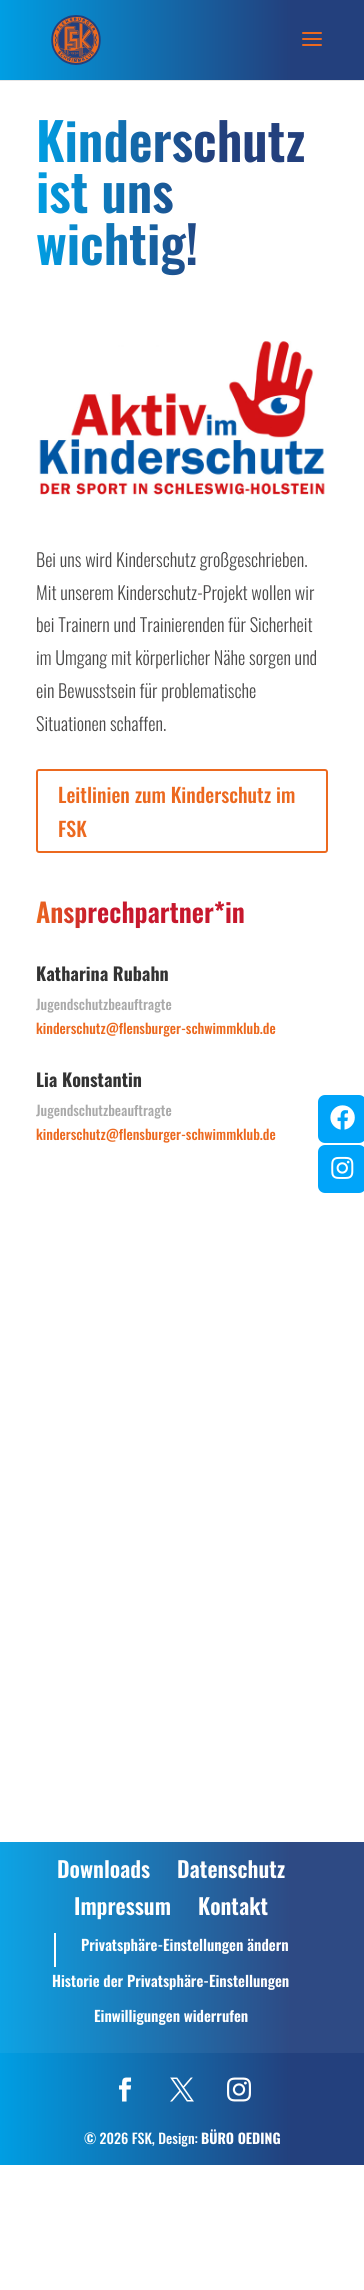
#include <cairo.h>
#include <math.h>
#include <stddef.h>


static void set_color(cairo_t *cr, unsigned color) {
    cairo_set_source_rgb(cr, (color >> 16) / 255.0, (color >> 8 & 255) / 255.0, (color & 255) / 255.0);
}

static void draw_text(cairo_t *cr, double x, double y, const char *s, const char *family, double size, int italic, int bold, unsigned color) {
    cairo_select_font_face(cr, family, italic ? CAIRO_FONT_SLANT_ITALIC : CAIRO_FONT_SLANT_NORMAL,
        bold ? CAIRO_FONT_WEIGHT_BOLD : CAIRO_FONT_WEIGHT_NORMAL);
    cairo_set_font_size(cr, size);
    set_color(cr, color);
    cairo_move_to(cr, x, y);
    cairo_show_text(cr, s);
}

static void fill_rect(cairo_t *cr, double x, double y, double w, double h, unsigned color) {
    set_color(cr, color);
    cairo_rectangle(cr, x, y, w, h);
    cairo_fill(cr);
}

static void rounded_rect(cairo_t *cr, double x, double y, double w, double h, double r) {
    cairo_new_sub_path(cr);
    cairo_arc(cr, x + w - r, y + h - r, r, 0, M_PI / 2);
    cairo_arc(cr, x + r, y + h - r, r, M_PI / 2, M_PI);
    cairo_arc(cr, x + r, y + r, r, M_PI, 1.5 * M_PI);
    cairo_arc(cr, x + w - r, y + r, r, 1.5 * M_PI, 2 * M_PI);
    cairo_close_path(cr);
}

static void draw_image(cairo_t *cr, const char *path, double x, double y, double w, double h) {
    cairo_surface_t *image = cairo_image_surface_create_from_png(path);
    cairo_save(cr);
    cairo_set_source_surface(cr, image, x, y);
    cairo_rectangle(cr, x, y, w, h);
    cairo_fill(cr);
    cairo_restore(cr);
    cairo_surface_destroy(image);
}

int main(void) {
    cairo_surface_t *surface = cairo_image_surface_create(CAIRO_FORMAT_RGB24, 364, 2290);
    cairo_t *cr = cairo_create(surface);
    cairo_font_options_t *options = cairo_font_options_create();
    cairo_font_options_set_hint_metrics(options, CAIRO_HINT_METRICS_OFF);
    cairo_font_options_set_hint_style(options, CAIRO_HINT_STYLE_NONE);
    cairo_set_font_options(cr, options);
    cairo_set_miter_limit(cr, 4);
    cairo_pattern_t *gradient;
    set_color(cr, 0xFFFFFF);
    cairo_paint(cr);
    fill_rect(cr, 0, 80, 364, 1, 0xE6E6E6);
    gradient = cairo_pattern_create_linear(0, 40, 364, 40);
    cairo_pattern_add_color_stop_rgba(gradient, 0, 0, 0.62, 0.89, 1);
    cairo_pattern_add_color_stop_rgba(gradient, 0.8, 0.137, 0.251, 0.49, 1);
    cairo_set_source(cr, gradient);
    cairo_pattern_destroy(gradient);
    cairo_rectangle(cr, 0, 0, 364, 80);
    cairo_fill(cr);
    draw_image(cr, "assets/img1.png", 51, 15, 50, 50);
    draw_image(cr, "assets/img2.png", 302, 32, 20, 14);
    cairo_select_font_face(cr, "Oswald SemiBold", CAIRO_FONT_SLANT_NORMAL, CAIRO_FONT_WEIGHT_NORMAL);
    cairo_set_font_size(cr, 51.75);
    gradient = cairo_pattern_create_linear(36, 195, 328, 195);
    cairo_pattern_add_color_stop_rgba(gradient, 0, 0, 0.62, 0.89, 1);
    cairo_pattern_add_color_stop_rgba(gradient, 0.6, 0.137, 0.251, 0.49, 1);
    cairo_set_source(cr, gradient);
    cairo_pattern_destroy(gradient);
    cairo_move_to(cr, 36, 162);
    cairo_show_text(cr, "Kinderschutz");
    cairo_move_to(cr, 36, 213);
    cairo_show_text(cr, "ist uns");
    cairo_move_to(cr, 36, 265);
    cairo_show_text(cr, "wichtig!");
    draw_image(cr, "assets/img3.png", 39, 341, 286, 154);
    draw_text(cr, 36, 567, "Bei uns wird Kinderschutz großgeschrieben.", "Oswald Light", 18.25, 0, 0, 0x4A4949);
    draw_text(cr, 36, 600, "Mit unserem Kinderschutz-Projekt wollen wir", "Oswald Light", 18.25, 0, 0, 0x4A4949);
    draw_text(cr, 36, 632, "bei Trainern und Trainierenden für Sicherheit", "Oswald Light", 18.25, 0, 0, 0x4A4949);
    draw_text(cr, 36, 665, "im Umgang mit körperlicher Nähe sorgen und", "Oswald Light", 18.25, 0, 0, 0x4A4949);
    draw_text(cr, 36, 698, "ein Bewusstsein für problematische", "Oswald Light", 18.25, 0, 0, 0x4A4949);
    draw_text(cr, 36, 731, "Situationen schaffen.", "Oswald Light", 18.25, 0, 0, 0x4A4949);
    rounded_rect(cr, 37, 770, 290, 82, 2);
    set_color(cr, 0xEC691F);
    cairo_stroke(cr);
    draw_text(cr, 58, 803, "Leitlinien zum Kinderschutz im", "Oswald Medium", 20, 0, 0, 0xEC691F);
    draw_text(cr, 58, 837, "FSK", "Oswald Medium", 20, 0, 0, 0xEC691F);
    cairo_select_font_face(cr, "Oswald SemiBold", CAIRO_FONT_SLANT_NORMAL, CAIRO_FONT_WEIGHT_NORMAL);
    cairo_set_font_size(cr, 26.5);
    gradient = cairo_pattern_create_linear(36, 916, 328, 916);
    cairo_pattern_add_color_stop_rgba(gradient, 0, 0.925, 0.412, 0.122, 1);
    cairo_pattern_add_color_stop_rgba(gradient, 0.2, 0.78, 0.094, 0.176, 1);
    cairo_set_source(cr, gradient);
    cairo_pattern_destroy(gradient);
    cairo_move_to(cr, 36, 923);
    cairo_show_text(cr, "Ansprechpartner*in");
    draw_text(cr, 36, 981, "Katharina Rubahn", "Oswald", 18, 0, 1, 0x333333);
    draw_text(cr, 36, 1010, "Jugendschutzbeauftragte", "Oswald Medium", 14, 0, 0, 0xAAAAAA);
    draw_text(cr, 36, 1034, "kinderschutz@flensburger-schwimmklub.de", "Oswald Medium", 14, 0, 0, 0xEC691F);
    draw_text(cr, 36, 1087, "Lia Konstantin", "Oswald", 18, 0, 1, 0x333333);
    draw_text(cr, 36, 1116, "Jugendschutzbeauftragte", "Oswald Medium", 14, 0, 0, 0xAAAAAA);
    draw_text(cr, 36, 1140, "kinderschutz@flensburger-schwimmklub.de", "Oswald Medium", 14, 0, 0, 0xEC691F);
    gradient = cairo_pattern_create_linear(0, 2004, 364, 2004);
    cairo_pattern_add_color_stop_rgba(gradient, 0, 0, 0.62, 0.89, 1);
    cairo_pattern_add_color_stop_rgba(gradient, 0.8, 0.137, 0.251, 0.49, 1);
    cairo_set_source(cr, gradient);
    cairo_pattern_destroy(gradient);
    cairo_rectangle(cr, 0, 2053, 364, 112);
    cairo_fill(cr);
    gradient = cairo_pattern_create_linear(0, 2004, 364, 2004);
    cairo_pattern_add_color_stop_rgba(gradient, 0, 0.051, 0.639, 0.894, 1);
    cairo_pattern_add_color_stop_rgba(gradient, 0.8, 0.18, 0.29, 0.518, 1);
    cairo_set_source(cr, gradient);
    cairo_pattern_destroy(gradient);
    cairo_rectangle(cr, 0, 1842, 364, 211);
    cairo_fill(cr);
    draw_text(cr, 57, 1878, "Downloads", "Oswald SemiBold", 22, 0, 0, 0xFFFFFF);
    draw_text(cr, 177, 1878, "Datenschutz", "Oswald SemiBold", 22, 0, 0, 0xFFFFFF);
    draw_text(cr, 74, 1915, "Impressum", "Oswald SemiBold", 22, 0, 0, 0xFFFFFF);
    draw_text(cr, 198, 1915, "Kontakt", "Oswald SemiBold", 22, 0, 0, 0xFFFFFF);
    fill_rect(cr, 54, 1933, 2, 34, 0xFFFFFF);
    draw_text(cr, 81, 1951, "Privatsphäre-Einstellungen ändern", "Oswald SemiBold", 15, 0, 0, 0xFFFFFF);
    draw_text(cr, 52, 1987, "Historie der Privatsphäre-Einstellungen", "Oswald SemiBold", 15, 0, 0, 0xFFFFFF);
    draw_text(cr, 94, 2022, "Einwilligungen widerrufen", "Oswald SemiBold", 15, 0, 0, 0xFFFFFF);
    draw_image(cr, "assets/img4.png", 119, 2077, 13, 25);
    draw_image(cr, "assets/img5.png", 170, 2077, 24, 25);
    draw_image(cr, "assets/img6.png", 227, 2077, 24, 25);
    draw_text(cr, 84, 2144, "© 2026 FSK, Design:", "Oswald Medium", 14, 0, 0, 0xFFFFFF);
    draw_text(cr, 201, 2144, "BÜRO OEDING", "Oswald", 14, 0, 1, 0xFFFFFF);
    set_color(cr, 0x00A4F9);
    rounded_rect(cr, 318, 1095, 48, 48, 7);
    cairo_fill(cr);
    draw_image(cr, "assets/img7.png", 330, 1105, 25, 25);
    rounded_rect(cr, 318, 1145, 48, 48, 7);
    cairo_fill(cr);
    draw_image(cr, "assets/img8.png", 331, 1156, 23, 23);
    cairo_surface_write_to_png(surface, "output.png");
    cairo_font_options_destroy(options);
    cairo_destroy(cr);
    cairo_surface_destroy(surface);
    return 0;
}
